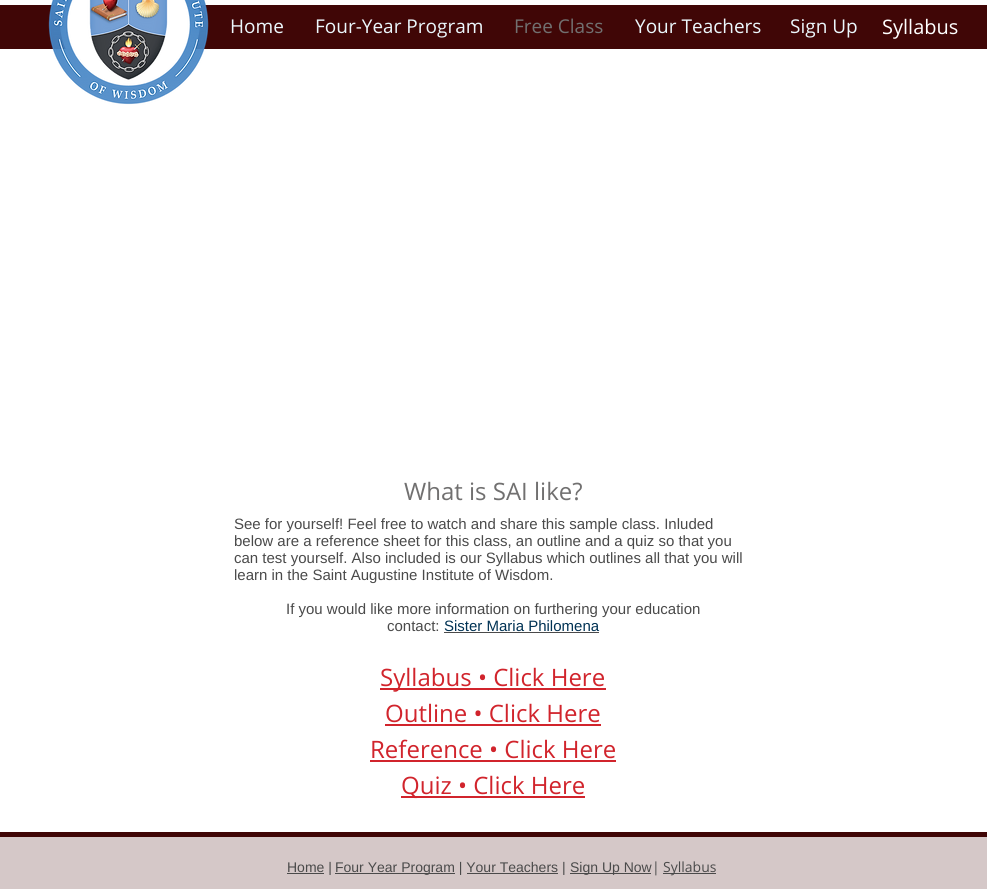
#include <cairo.h>
#include <math.h>
#include <stddef.h>


static void set_color(cairo_t *cr, unsigned color) {
    cairo_set_source_rgb(cr, (color >> 16) / 255.0, (color >> 8 & 255) / 255.0, (color & 255) / 255.0);
}

static void draw_text(cairo_t *cr, double x, double y, const char *s, const char *family, double size, int italic, int bold, unsigned color) {
    cairo_select_font_face(cr, family, italic ? CAIRO_FONT_SLANT_ITALIC : CAIRO_FONT_SLANT_NORMAL,
        bold ? CAIRO_FONT_WEIGHT_BOLD : CAIRO_FONT_WEIGHT_NORMAL);
    cairo_set_font_size(cr, size);
    set_color(cr, color);
    cairo_move_to(cr, x, y);
    cairo_show_text(cr, s);
}

static void fill_rect(cairo_t *cr, double x, double y, double w, double h, unsigned color) {
    set_color(cr, color);
    cairo_rectangle(cr, x, y, w, h);
    cairo_fill(cr);
}

static void draw_image(cairo_t *cr, const char *path, double x, double y, double w, double h) {
    cairo_surface_t *image = cairo_image_surface_create_from_png(path);
    cairo_save(cr);
    cairo_set_source_surface(cr, image, x, y);
    cairo_rectangle(cr, x, y, w, h);
    cairo_fill(cr);
    cairo_restore(cr);
    cairo_surface_destroy(image);
}

int main(void) {
    cairo_surface_t *surface = cairo_image_surface_create(CAIRO_FORMAT_RGB24, 987, 889);
    cairo_t *cr = cairo_create(surface);
    cairo_font_options_t *options = cairo_font_options_create();
    cairo_font_options_set_hint_metrics(options, CAIRO_HINT_METRICS_OFF);
    cairo_font_options_set_hint_style(options, CAIRO_HINT_STYLE_NONE);
    cairo_set_font_options(cr, options);
    cairo_set_miter_limit(cr, 4);
    set_color(cr, 0xFFFFFF);
    cairo_paint(cr);
    fill_rect(cr, 0, 5, 987, 44, 0x400606);
    set_color(cr, 0xFFFFFF);
    cairo_new_path(cr);
    cairo_move_to(cr, 200, 22);
    cairo_curve_to(cr, 200, 60, 168, 91, 130, 91);
    cairo_curve_to(cr, 92, 91, 60, 60, 60, 22);
    cairo_curve_to(cr, 60, -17, 92, -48, 130, -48);
    cairo_curve_to(cr, 168, -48, 200, -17, 200, 22);
    cairo_close_path(cr);
    cairo_fill(cr);
    draw_image(cr, "assets/img1.png", 48, 0, 161, 105);
    draw_text(cr, 230, 33, "Home", "Open Sans", 19, 0, 0, 0xEBF7FC);
    draw_text(cr, 315, 33, "Four-Year Program", "Open Sans", 19, 0, 0, 0xEBF7FC);
    draw_text(cr, 514, 33, "Free Class", "Open Sans", 19, 0, 0, 0x717070);
    draw_text(cr, 635, 33, "Your Teachers", "Open Sans", 19, 0, 0, 0xEBF7FC);
    draw_text(cr, 790, 33, "Sign Up", "Open Sans", 19, 0, 0, 0xEBF7FC);
    draw_text(cr, 882, 34, "Syllabus", "Open Sans", 20, 0, 0, 0xFFFFFF);
    draw_text(cr, 404, 500, "What is SAI like?", "Open Sans", 24, 0, 0, 0x717070);
    draw_text(cr, 234, 529, "See for yourself! Feel free to watch and share this sample class. Inluded", "Liberation Sans", 15, 0, 0, 0x4A4A4A);
    draw_text(cr, 234, 546, "below are a reference sheet for this class, an outline and a quiz so that you", "Liberation Sans", 15, 0, 0, 0x4A4A4A);
    draw_text(cr, 234, 563, "can test yourself. Also included is our Syllabus which outlines all that you will", "Liberation Sans", 15, 0, 0, 0x4A4A4A);
    draw_text(cr, 234, 580, "learn in the Saint Augustine Institute of Wisdom.", "Liberation Sans", 15, 0, 0, 0x4A4A4A);
    draw_text(cr, 286, 614, "If you would like more information on furthering your education", "Liberation Sans", 15, 0, 0, 0x4A4A4A);
    draw_text(cr, 387, 631, "contact:", "Liberation Sans", 15, 0, 0, 0x4A4A4A);
    draw_text(cr, 444, 631, "Sister Maria Philomena", "Liberation Sans", 15, 0, 0, 0x003254);
    fill_rect(cr, 444, 632, 155, 1, 0x4A4A4A);
    fill_rect(cr, 380, 688, 226, 2, 0xD1242C);
    draw_text(cr, 380, 686, "Syllabus • Click Here", "Open Sans", 24, 0, 0, 0xD1242C);
    draw_text(cr, 385, 722, "Outline • Click Here", "Open Sans", 24, 0, 0, 0xD1242C);
    fill_rect(cr, 385, 724, 216, 2, 0xD1242C);
    draw_text(cr, 370, 758, "Reference • Click Here", "Open Sans", 24, 0, 0, 0xD1242C);
    fill_rect(cr, 370, 760, 246, 2, 0xD1242C);
    fill_rect(cr, 401, 796, 184, 2, 0xD1242C);
    draw_text(cr, 401, 794, "Quiz • Click Here", "Open Sans", 24, 0, 0, 0xD1242C);
    fill_rect(cr, 0, 832, 987, 5, 0x400606);
    fill_rect(cr, 0, 837, 987, 52, 0xD5C8C8);
    fill_rect(cr, 287, 873, 37, 1, 0x4A4A4A);
    draw_text(cr, 287, 872, "Home |", "Liberation Sans", 14, 0, 0, 0x4A4A4A);
    fill_rect(cr, 335, 873, 120, 1, 0x4A4A4A);
    draw_text(cr, 335, 872, "Four Year Program | Your Teachers |", "Liberation Sans", 14, 0, 0, 0x4A4A4A);
    fill_rect(cr, 570, 873, 81, 1, 0x4A4A4A);
    draw_text(cr, 570, 872, "Sign Up Now", "Liberation Sans", 14, 0, 0, 0x4A4A4A);
    fill_rect(cr, 467, 873, 91, 1, 0x4A4A4A);
    draw_text(cr, 652, 872, "|", "Open Sans", 14, 0, 0, 0x4A4A4A);
    fill_rect(cr, 663, 873, 53, 1, 0x4A4A4A);
    draw_text(cr, 663, 872, "Syllabus", "Open Sans", 14, 0, 0, 0x4A4A4A);
    cairo_surface_write_to_png(surface, "output.png");
    cairo_font_options_destroy(options);
    cairo_destroy(cr);
    cairo_surface_destroy(surface);
    return 0;
}
